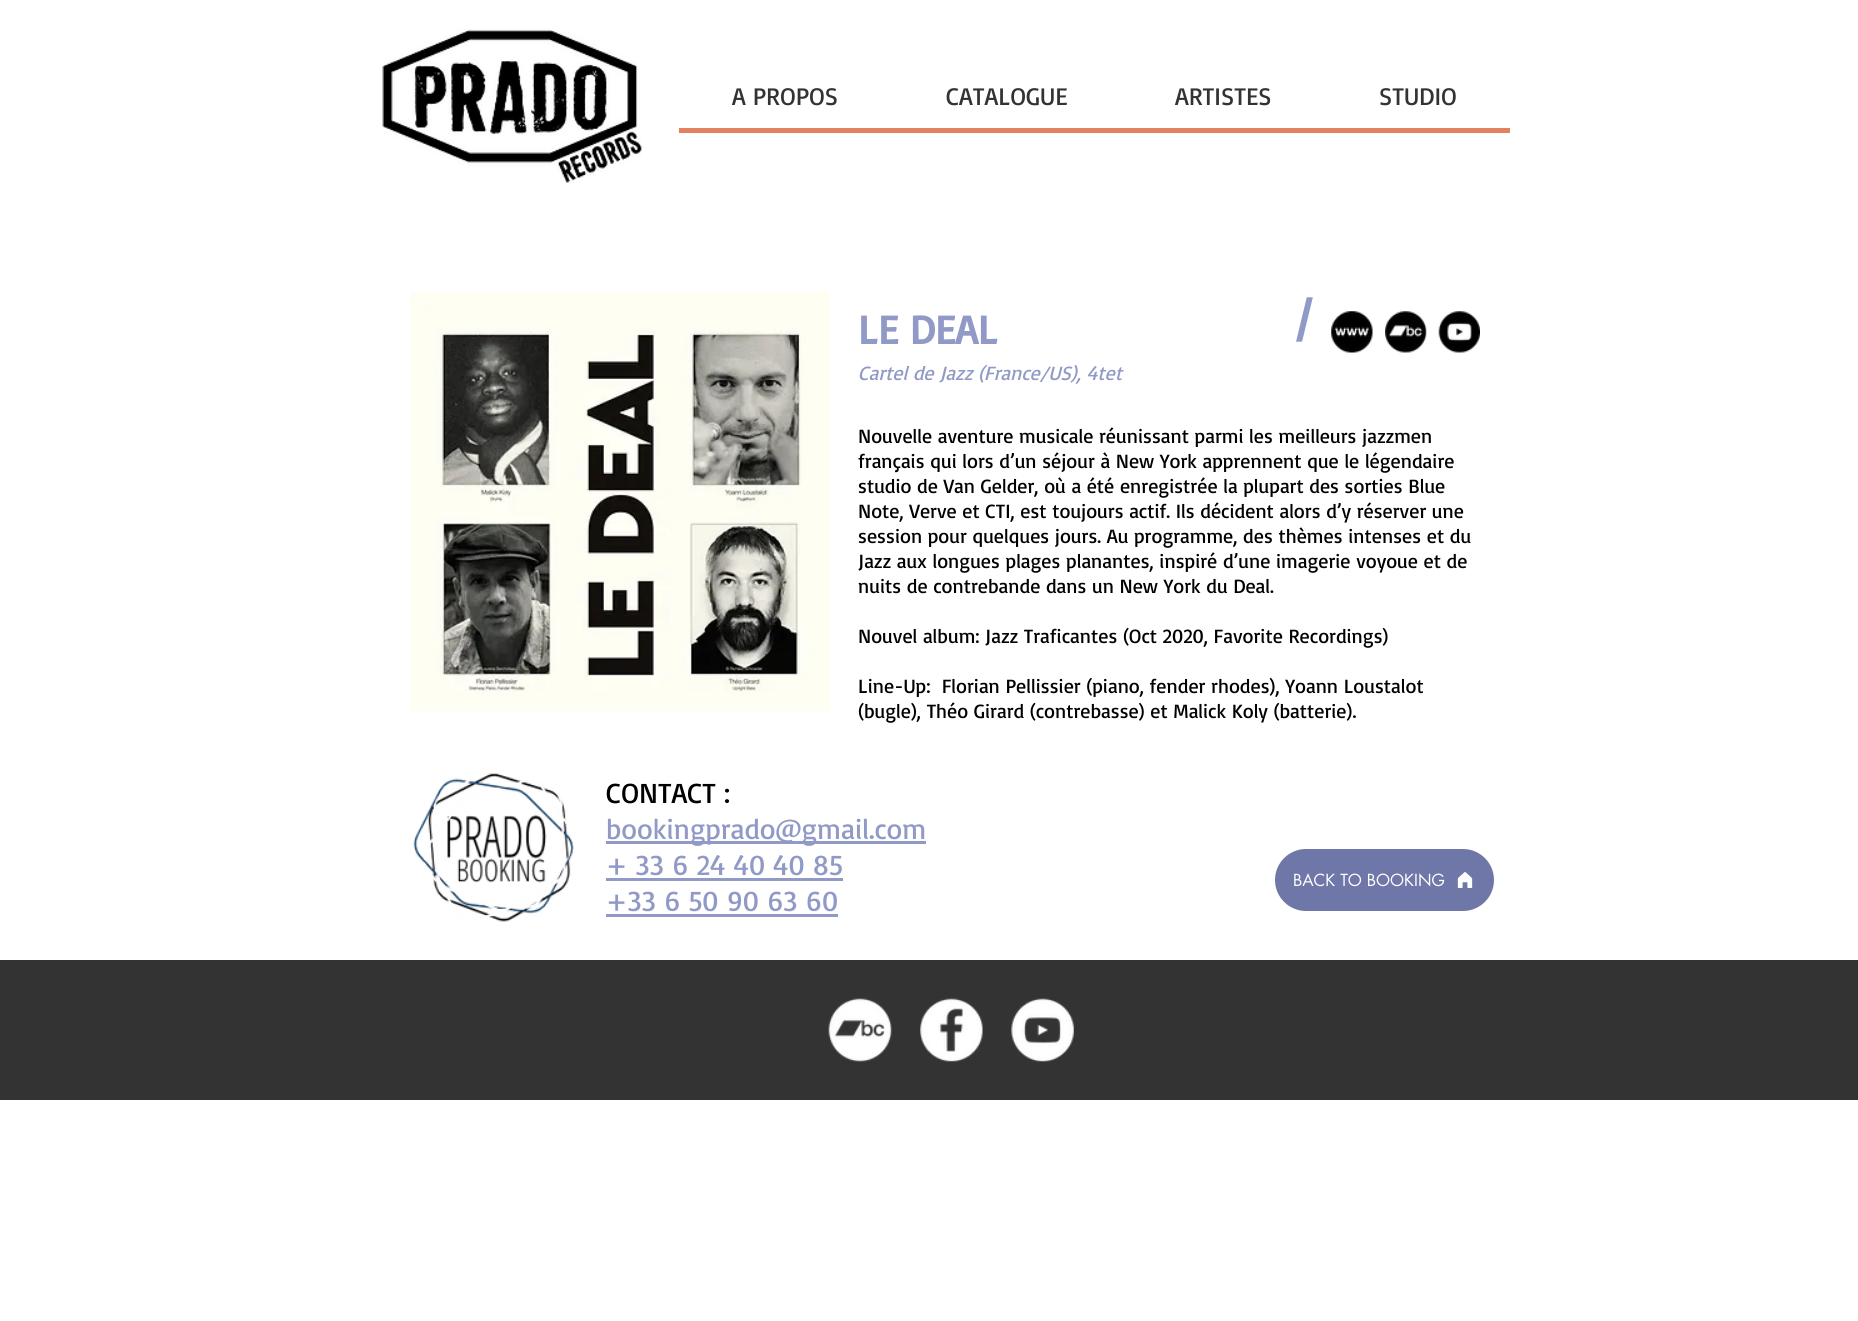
#include <cairo.h>
#include <math.h>
#include <stddef.h>


static void set_color(cairo_t *cr, unsigned color) {
    cairo_set_source_rgb(cr, (color >> 16) / 255.0, (color >> 8 & 255) / 255.0, (color & 255) / 255.0);
}

static void draw_text(cairo_t *cr, double x, double y, const char *s, const char *family, double size, int italic, int bold, unsigned color) {
    cairo_select_font_face(cr, family, italic ? CAIRO_FONT_SLANT_ITALIC : CAIRO_FONT_SLANT_NORMAL,
        bold ? CAIRO_FONT_WEIGHT_BOLD : CAIRO_FONT_WEIGHT_NORMAL);
    cairo_set_font_size(cr, size);
    set_color(cr, color);
    cairo_move_to(cr, x, y);
    cairo_show_text(cr, s);
}

static void fill_rect(cairo_t *cr, double x, double y, double w, double h, unsigned color) {
    set_color(cr, color);
    cairo_rectangle(cr, x, y, w, h);
    cairo_fill(cr);
}

static void rounded_rect(cairo_t *cr, double x, double y, double w, double h, double r) {
    cairo_new_sub_path(cr);
    cairo_arc(cr, x + w - r, y + h - r, r, 0, M_PI / 2);
    cairo_arc(cr, x + r, y + h - r, r, M_PI / 2, M_PI);
    cairo_arc(cr, x + r, y + r, r, M_PI, 1.5 * M_PI);
    cairo_arc(cr, x + w - r, y + r, r, 1.5 * M_PI, 2 * M_PI);
    cairo_close_path(cr);
}

static void draw_image(cairo_t *cr, const char *path, double x, double y, double w, double h) {
    cairo_surface_t *image = cairo_image_surface_create_from_png(path);
    cairo_save(cr);
    cairo_set_source_surface(cr, image, x, y);
    cairo_rectangle(cr, x, y, w, h);
    cairo_fill(cr);
    cairo_restore(cr);
    cairo_surface_destroy(image);
}

int main(void) {
    cairo_surface_t *surface = cairo_image_surface_create(CAIRO_FORMAT_RGB24, 1858, 1321);
    cairo_t *cr = cairo_create(surface);
    cairo_font_options_t *options = cairo_font_options_create();
    cairo_font_options_set_hint_metrics(options, CAIRO_HINT_METRICS_OFF);
    cairo_font_options_set_hint_style(options, CAIRO_HINT_STYLE_NONE);
    cairo_set_font_options(cr, options);
    cairo_set_miter_limit(cr, 4);
    set_color(cr, 0xFFFFFF);
    cairo_paint(cr);
    draw_image(cr, "assets/img1.png", 382, 29, 260, 154);
    fill_rect(cr, 679, 128, 831, 5, 0xE3815F);
    draw_text(cr, 732, 105, "A PROPOS", "Basic", 25, 0, 0, 0x333333);
    draw_text(cr, 946, 105, "CATALOGUE", "Basic", 25, 0, 0, 0x333333);
    draw_text(cr, 1175, 105, "ARTISTES", "Basic", 25, 0, 0, 0x333333);
    draw_text(cr, 1379, 105, "STUDIO", "Basic", 25, 0, 0, 0x333333);
    draw_image(cr, "assets/img2.png", 410, 291, 420, 420);
    draw_text(cr, 858, 344, "LE DEAL", "Basic", 41, 0, 1, 0x919AC7);
    draw_text(cr, 1296, 341, "/", "arial Black", 60, 0, 0, 0x919AC7);
    draw_image(cr, "assets/img3.png", 1331, 311, 42, 42);
    draw_image(cr, "assets/img4.png", 1385, 311, 42, 42);
    draw_image(cr, "assets/img5.png", 1438, 311, 42, 42);
    draw_text(cr, 858, 380, "Cartel de Jazz (France/US), 4tet", "Basic", 20, 1, 0, 0x919AC7);
    draw_text(cr, 858, 443, "Nouvelle aventure musicale réunissant parmi les meilleurs jazzmen", "Basic", 20, 0, 0, 0x000000);
    draw_text(cr, 858, 468, "français qui lors d’un séjour à New York apprennent que le légendaire", "Basic", 20, 0, 0, 0x000000);
    draw_text(cr, 858, 493, "studio de Van Gelder, où a été enregistrée la plupart des sorties Blue", "Basic", 20, 0, 0, 0x000000);
    draw_text(cr, 858, 518, "Note, Verve et CTI, est toujours actif. Ils décident alors d’y réserver une", "Basic", 20, 0, 0, 0x000000);
    draw_text(cr, 858, 543, "session pour quelques jours. Au programme, des thèmes intenses et du", "Basic", 20, 0, 0, 0x000000);
    draw_text(cr, 858, 568, "Jazz aux longues plages planantes, inspiré d’une imagerie voyoue et de", "Basic", 20, 0, 0, 0x000000);
    draw_text(cr, 858, 593, "nuits de contrebande dans un New York du Deal.", "Basic", 20, 0, 0, 0x000000);
    draw_text(cr, 858, 643, "Nouvel album: Jazz Traficantes (Oct 2020, Favorite Recordings)", "Basic", 20, 0, 0, 0x000000);
    draw_text(cr, 858, 693, "Line-Up:  Florian Pellissier (piano, fender rhodes), Yoann Loustalot", "Basic", 20, 0, 0, 0x000000);
    draw_text(cr, 858, 718, "(bugle), Théo Girard (contrebasse) et Malick Koly (batterie).", "Basic", 20, 0, 0, 0x000000);
    draw_image(cr, "assets/img6.png", 413, 773, 161, 149);
    draw_text(cr, 606, 803, "CONTACT :", "Basic", 28.75, 0, 0, 0x000000);
    fill_rect(cr, 606, 841, 320, 3, 0x919AC7);
    draw_text(cr, 606, 839, "bookingprado@gmail.com", "Basic", 28.75, 0, 0, 0x919AC7);
    draw_text(cr, 606, 875, "+ 33 6 24 40 40 85", "Basic", 28.75, 0, 0, 0x919AC7);
    fill_rect(cr, 606, 878, 237, 3, 0x919AC7);
    draw_text(cr, 606, 911, "+33 6 50 90 63 60", "Basic", 28.75, 0, 0, 0x919AC7);
    fill_rect(cr, 606, 914, 232, 3, 0x919AC7);
    set_color(cr, 0x6E77A8);
    rounded_rect(cr, 1275, 849, 219, 62, 31);
    cairo_fill(cr);
    draw_text(cr, 1293, 886, "BACK TO BOOKING", "futura", 16.25, 0, 0, 0xFFFFFF);
    draw_image(cr, "assets/img7.png", 1457, 872, 16, 16);
    fill_rect(cr, 0, 960, 1858, 140, 0x333333);
    draw_image(cr, "assets/img8.png", 828, 998, 64, 64);
    draw_image(cr, "assets/img9.png", 920, 998, 63, 64);
    draw_image(cr, "assets/img10.png", 1011, 998, 63, 64);
    cairo_surface_write_to_png(surface, "output.png");
    cairo_font_options_destroy(options);
    cairo_destroy(cr);
    cairo_surface_destroy(surface);
    return 0;
}
